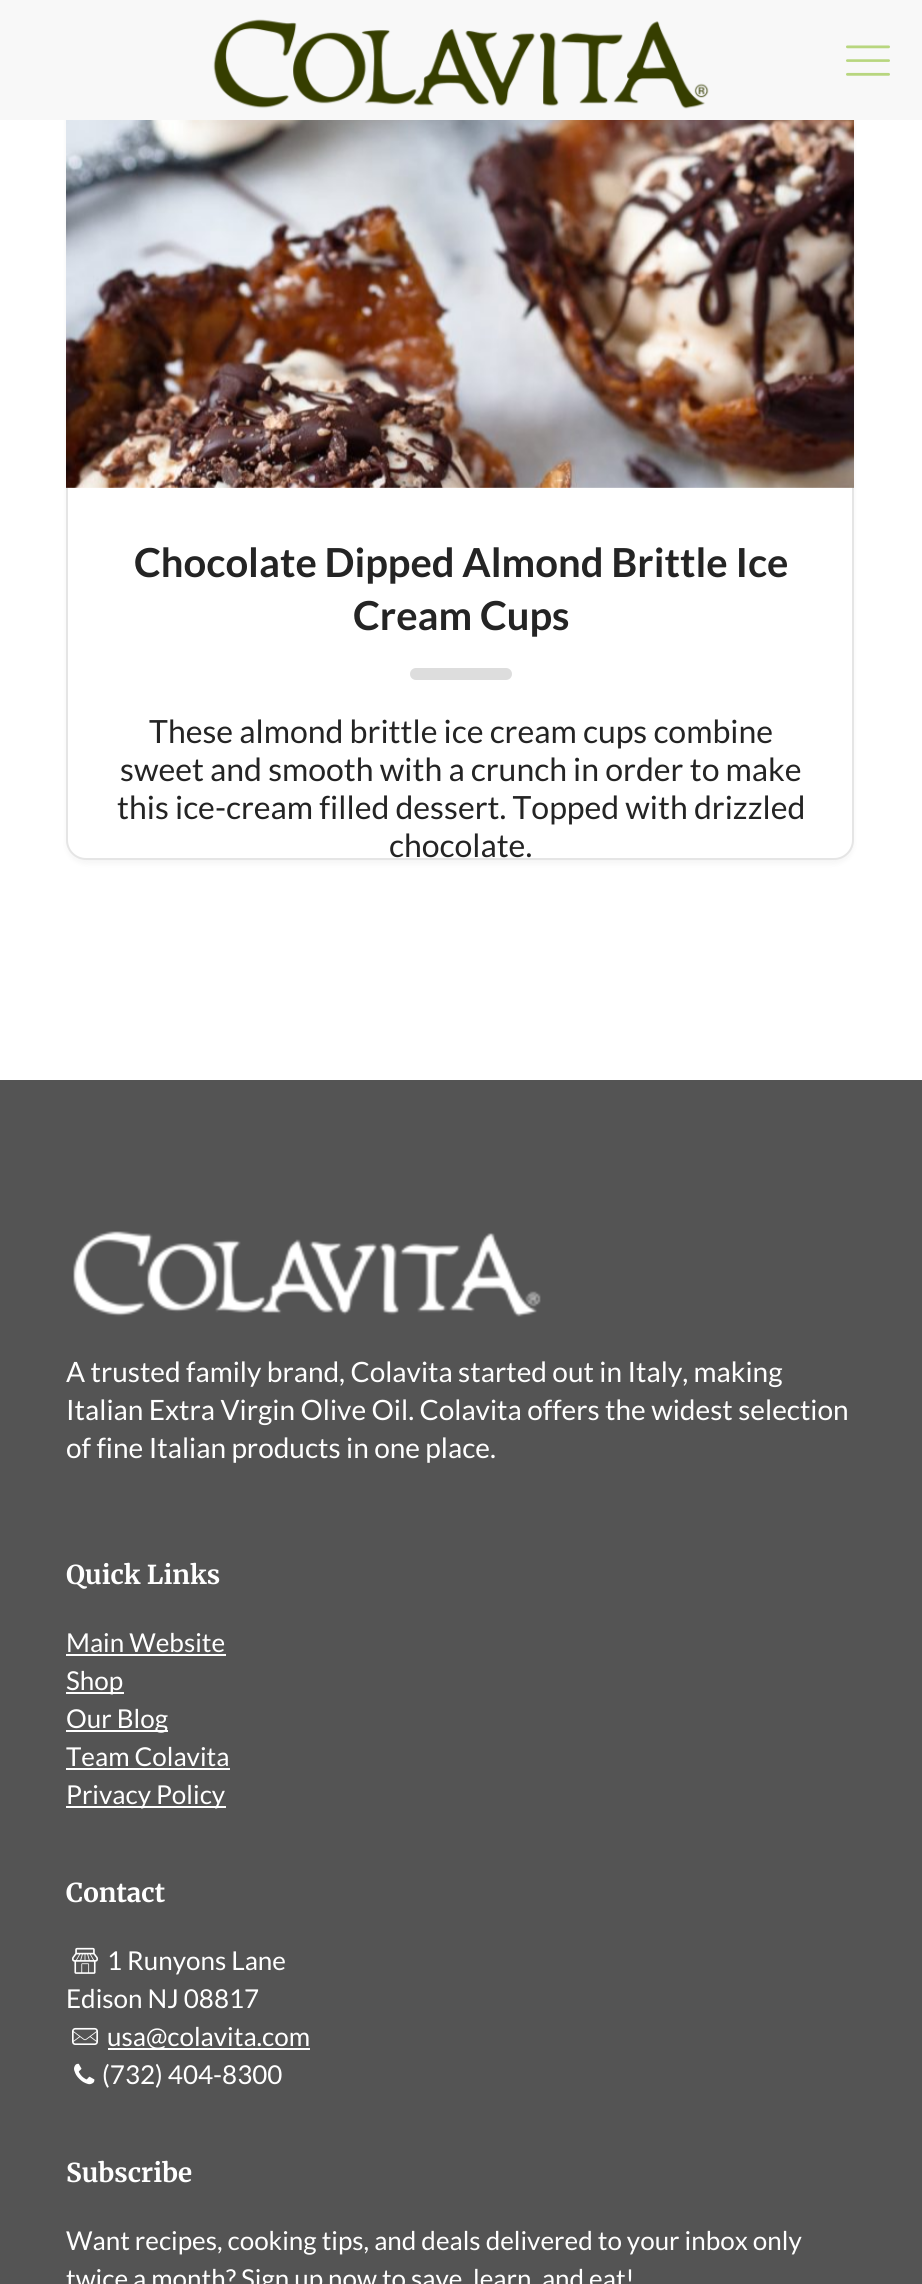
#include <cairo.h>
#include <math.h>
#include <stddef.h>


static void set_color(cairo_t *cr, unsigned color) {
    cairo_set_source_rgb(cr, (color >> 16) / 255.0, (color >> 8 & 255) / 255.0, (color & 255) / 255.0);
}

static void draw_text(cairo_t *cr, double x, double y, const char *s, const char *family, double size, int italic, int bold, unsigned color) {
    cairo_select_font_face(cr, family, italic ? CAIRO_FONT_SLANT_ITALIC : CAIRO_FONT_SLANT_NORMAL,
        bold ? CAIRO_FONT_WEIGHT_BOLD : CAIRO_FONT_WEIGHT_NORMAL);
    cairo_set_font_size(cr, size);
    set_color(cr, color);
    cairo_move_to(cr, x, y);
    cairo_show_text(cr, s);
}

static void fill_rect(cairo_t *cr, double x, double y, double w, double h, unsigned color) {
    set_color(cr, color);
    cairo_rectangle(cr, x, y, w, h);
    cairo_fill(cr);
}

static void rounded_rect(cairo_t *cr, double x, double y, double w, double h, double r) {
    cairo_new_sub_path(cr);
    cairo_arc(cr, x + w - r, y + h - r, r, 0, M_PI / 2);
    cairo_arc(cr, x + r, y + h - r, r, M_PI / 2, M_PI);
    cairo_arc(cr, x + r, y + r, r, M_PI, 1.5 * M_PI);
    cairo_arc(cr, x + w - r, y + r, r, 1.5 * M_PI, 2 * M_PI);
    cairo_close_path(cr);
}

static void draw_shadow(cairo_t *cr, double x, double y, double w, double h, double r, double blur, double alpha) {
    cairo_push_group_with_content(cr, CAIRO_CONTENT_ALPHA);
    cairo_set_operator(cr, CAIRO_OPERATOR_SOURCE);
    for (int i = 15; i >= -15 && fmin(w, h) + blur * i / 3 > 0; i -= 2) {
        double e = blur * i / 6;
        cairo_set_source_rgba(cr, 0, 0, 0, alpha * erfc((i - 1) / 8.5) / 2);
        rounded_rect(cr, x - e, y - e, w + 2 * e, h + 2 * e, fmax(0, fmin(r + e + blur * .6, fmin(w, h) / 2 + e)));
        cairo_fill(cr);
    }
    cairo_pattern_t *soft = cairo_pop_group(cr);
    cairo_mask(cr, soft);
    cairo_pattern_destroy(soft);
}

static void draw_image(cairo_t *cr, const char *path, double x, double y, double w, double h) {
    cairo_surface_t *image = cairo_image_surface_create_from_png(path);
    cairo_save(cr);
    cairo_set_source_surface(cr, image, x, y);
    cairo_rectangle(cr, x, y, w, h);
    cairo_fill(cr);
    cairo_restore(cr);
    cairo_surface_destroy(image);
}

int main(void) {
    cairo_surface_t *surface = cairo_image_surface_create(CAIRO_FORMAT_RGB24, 922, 2284);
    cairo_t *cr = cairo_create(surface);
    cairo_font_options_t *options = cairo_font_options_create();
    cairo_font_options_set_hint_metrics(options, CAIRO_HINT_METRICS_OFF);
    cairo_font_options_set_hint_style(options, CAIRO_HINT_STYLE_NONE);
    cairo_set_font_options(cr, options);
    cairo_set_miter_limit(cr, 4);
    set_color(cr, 0xFFFFFF);
    cairo_paint(cr);
    set_color(cr, 0x000000);
    draw_shadow(cr, 66, -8, 788, 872, 20, 3, 0.04);
    set_color(cr, 0xFFFFFF);
    rounded_rect(cr, 67, -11, 786, 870, 19);
    cairo_fill_preserve(cr);
    set_color(cr, 0xE5E5E5);
    cairo_stroke(cr);
    fill_rect(cr, 0, 0, 922, 120, 0xF8F8F8);
    draw_image(cr, "assets/img1.png", 213, 19, 496, 90);
    draw_image(cr, "assets/img2.png", 846, 45, 44, 31);
    draw_image(cr, "assets/img3.png", 66, 120, 788, 368);
    draw_text(cr, 134, 577, "Chocolate Dipped Almond Brittle Ice", "Lato", 40, 0, 1, 0x242424);
    draw_text(cr, 353, 630, "Cream Cups", "Lato", 40, 0, 1, 0x242424);
    set_color(cr, 0xDDDDDD);
    rounded_rect(cr, 410, 668, 102, 12, 6);
    cairo_fill(cr);
    draw_text(cr, 149, 743, "These almond brittle ice cream cups combine", "Lato", 32, 0, 0, 0x242424);
    draw_text(cr, 120, 781, "sweet and smooth with a crunch in order to make", "Lato", 32, 0, 0, 0x242424);
    draw_text(cr, 117, 819, "this ice-cream filled dessert. Topped with drizzled", "Lato", 32, 0, 0, 0x242424);
    draw_text(cr, 389, 857, "chocolate.", "Lato", 32, 0, 0, 0x242424);
    fill_rect(cr, 0, 1080, 922, 1204, 0x545454);
    draw_image(cr, "assets/img4.png", 73, 1231, 468, 86);
    draw_text(cr, 66, 1382, "A trusted family brand, Colavita started out in Italy, making", "Lato", 28, 0, 0, 0xFFFFFF);
    draw_text(cr, 66, 1420, "Italian Extra Virgin Olive Oil. Colavita offers the widest selection", "Lato", 28, 0, 0, 0xFFFFFF);
    draw_text(cr, 66, 1458, "of fine Italian products in one place.", "Lato", 28, 0, 0, 0xFFFFFF);
    draw_text(cr, 66, 1584, "Quick Links", "Merriweather", 26, 0, 1, 0xFFFFFF);
    draw_text(cr, 66, 1652, "Main Website", "Lato", 26, 0, 0, 0xFFFFFF);
    fill_rect(cr, 66, 1654, 160, 2, 0xFFFFFF);
    fill_rect(cr, 66, 1692, 58, 2, 0xFFFFFF);
    draw_text(cr, 66, 1690, "Shop", "Lato", 26, 0, 0, 0xFFFFFF);
    fill_rect(cr, 66, 1730, 102, 2, 0xFFFFFF);
    draw_text(cr, 66, 1728, "Our Blog", "Lato", 26, 0, 0, 0xFFFFFF);
    draw_text(cr, 66, 1766, "Team Colavita", "Lato", 26, 0, 0, 0xFFFFFF);
    fill_rect(cr, 66, 1768, 164, 2, 0xFFFFFF);
    fill_rect(cr, 66, 1806, 160, 2, 0xFFFFFF);
    draw_text(cr, 66, 1804, "Privacy Policy", "Lato", 26, 0, 0, 0xFFFFFF);
    draw_text(cr, 66, 1902, "Contact", "Merriweather", 26, 0, 1, 0xFFFFFF);
    draw_image(cr, "assets/img5.png", 72, 1947, 26, 27);
    draw_text(cr, 107, 1970, "1 Runyons Lane", "Lato", 26, 0, 0, 0xFFFFFF);
    draw_text(cr, 66, 2008, "Edison NJ 08817", "Lato", 26, 0, 0, 0xFFFFFF);
    draw_image(cr, "assets/img6.png", 72, 2027, 26, 18);
    fill_rect(cr, 108, 2048, 202, 2, 0xFFFFFF);
    draw_text(cr, 107, 2046, "usa@colavita.com", "Lato", 26, 0, 0, 0xFFFFFF);
    draw_image(cr, "assets/img7.png", 74, 2063, 21, 22);
    draw_text(cr, 102, 2084, "(732) 404-8300", "Lato", 26, 0, 0, 0xFFFFFF);
    draw_text(cr, 66, 2182, "Subscribe", "Merriweather", 26, 0, 1, 0xFFFFFF);
    draw_text(cr, 66, 2250, "Want recipes, cooking tips, and deals delivered to your inbox only", "Lato", 26, 0, 0, 0xFFFFFF);
    draw_text(cr, 66, 2288, "twice a month? Sign up now to save, learn, and eat!", "Lato", 26, 0, 0, 0xFFFFFF);
    cairo_surface_write_to_png(surface, "output.png");
    cairo_font_options_destroy(options);
    cairo_destroy(cr);
    cairo_surface_destroy(surface);
    return 0;
}
